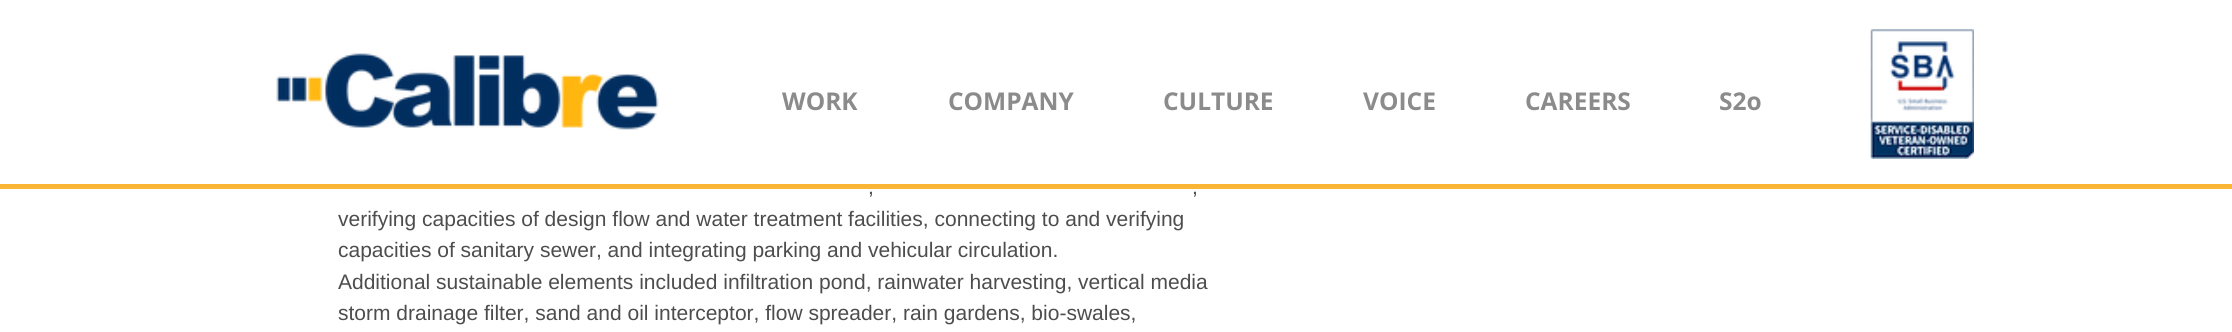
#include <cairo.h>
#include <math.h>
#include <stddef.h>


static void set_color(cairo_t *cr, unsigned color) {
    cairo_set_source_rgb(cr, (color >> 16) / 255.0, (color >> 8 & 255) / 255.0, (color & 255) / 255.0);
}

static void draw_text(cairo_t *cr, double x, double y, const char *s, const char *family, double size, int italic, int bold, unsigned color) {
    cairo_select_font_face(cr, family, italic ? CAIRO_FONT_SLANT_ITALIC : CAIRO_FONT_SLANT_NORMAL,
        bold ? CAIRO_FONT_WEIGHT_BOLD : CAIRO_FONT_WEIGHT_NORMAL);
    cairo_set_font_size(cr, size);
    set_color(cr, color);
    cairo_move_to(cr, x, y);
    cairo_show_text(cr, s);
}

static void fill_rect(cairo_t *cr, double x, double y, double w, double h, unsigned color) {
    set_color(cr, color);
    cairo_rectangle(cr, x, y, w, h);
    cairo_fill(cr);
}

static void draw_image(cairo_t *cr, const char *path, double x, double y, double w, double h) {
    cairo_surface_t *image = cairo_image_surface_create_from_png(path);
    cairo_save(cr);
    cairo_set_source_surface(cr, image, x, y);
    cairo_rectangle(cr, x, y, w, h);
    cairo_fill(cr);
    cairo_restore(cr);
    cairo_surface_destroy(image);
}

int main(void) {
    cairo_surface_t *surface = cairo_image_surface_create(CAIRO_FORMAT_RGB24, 2232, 332);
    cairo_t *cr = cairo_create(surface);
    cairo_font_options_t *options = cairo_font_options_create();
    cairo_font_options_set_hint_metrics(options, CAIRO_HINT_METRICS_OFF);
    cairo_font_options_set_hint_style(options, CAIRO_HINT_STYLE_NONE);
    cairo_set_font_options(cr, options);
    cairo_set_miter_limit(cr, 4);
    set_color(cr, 0xFFFFFF);
    cairo_paint(cr);
    draw_image(cr, "assets/img1.png", 276, 53, 383, 77);
    draw_text(cr, 782, 110, "WORK", "Open Sans", 24.5, 0, 1, 0x8B8B8B);
    draw_text(cr, 948, 110, "COMPANY", "Open Sans", 24.5, 0, 1, 0x8B8B8B);
    draw_text(cr, 1163, 110, "CULTURE", "Open Sans", 24.5, 0, 1, 0x8B8B8B);
    draw_text(cr, 1363, 110, "VOICE", "Open Sans", 24.5, 0, 1, 0x8B8B8B);
    draw_text(cr, 1525, 110, "CAREERS", "Open Sans", 24.5, 0, 1, 0x8B8B8B);
    draw_text(cr, 1719, 110, "S2o", "Open Sans", 24.5, 0, 1, 0x8B8B8B);
    draw_image(cr, "assets/img2.png", 1870, 29, 104, 130);
    fill_rect(cr, 0, 184, 2232, 5, 0xFAB534);
    draw_text(cr, 868, 194, ",", "Liberation Sans", 21, 0, 0, 0x4D4D4D);
    draw_text(cr, 1192, 194, ",", "Liberation Sans", 21, 0, 0, 0x4D4D4D);
    draw_text(cr, 338, 226, "verifying capacities of design flow and water treatment facilities, connecting to and verifying", "Liberation Sans", 21, 0, 0, 0x4D4D4D);
    draw_text(cr, 338, 257, "capacities of sanitary sewer, and integrating parking and vehicular circulation.", "Liberation Sans", 21, 0, 0, 0x4D4D4D);
    draw_text(cr, 338, 289, "Additional sustainable elements included infiltration pond, rainwater harvesting, vertical media", "Liberation Sans", 21, 0, 0, 0x4D4D4D);
    draw_text(cr, 338, 320, "storm drainage filter, sand and oil interceptor, flow spreader, rain gardens, bio-swales,", "Liberation Sans", 21, 0, 0, 0x4D4D4D);
    cairo_surface_write_to_png(surface, "output.png");
    cairo_font_options_destroy(options);
    cairo_destroy(cr);
    cairo_surface_destroy(surface);
    return 0;
}
